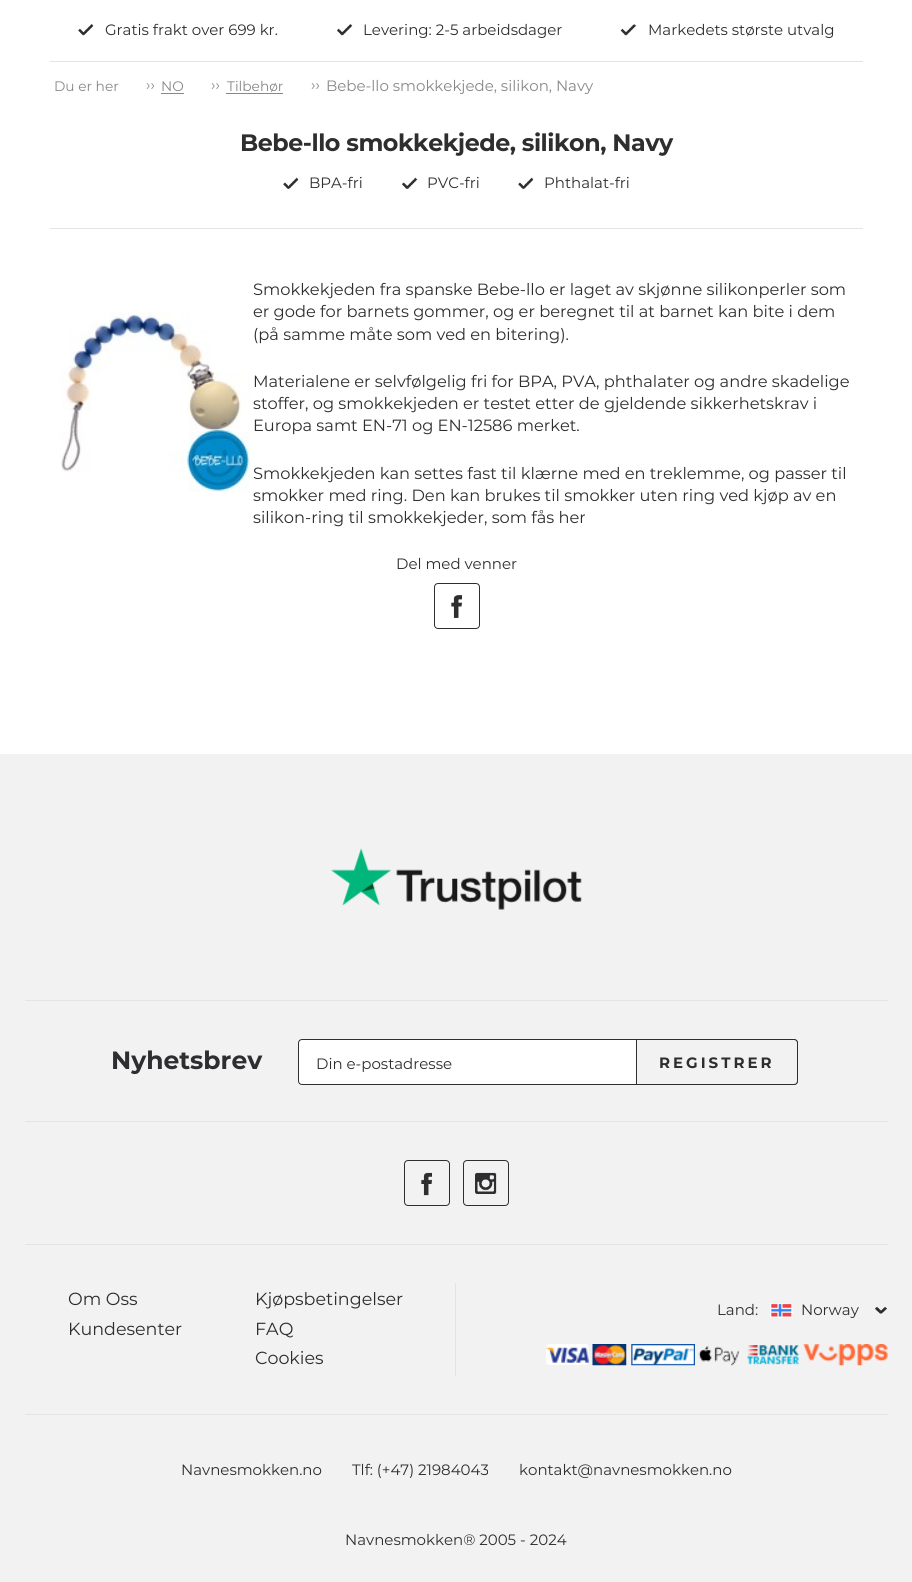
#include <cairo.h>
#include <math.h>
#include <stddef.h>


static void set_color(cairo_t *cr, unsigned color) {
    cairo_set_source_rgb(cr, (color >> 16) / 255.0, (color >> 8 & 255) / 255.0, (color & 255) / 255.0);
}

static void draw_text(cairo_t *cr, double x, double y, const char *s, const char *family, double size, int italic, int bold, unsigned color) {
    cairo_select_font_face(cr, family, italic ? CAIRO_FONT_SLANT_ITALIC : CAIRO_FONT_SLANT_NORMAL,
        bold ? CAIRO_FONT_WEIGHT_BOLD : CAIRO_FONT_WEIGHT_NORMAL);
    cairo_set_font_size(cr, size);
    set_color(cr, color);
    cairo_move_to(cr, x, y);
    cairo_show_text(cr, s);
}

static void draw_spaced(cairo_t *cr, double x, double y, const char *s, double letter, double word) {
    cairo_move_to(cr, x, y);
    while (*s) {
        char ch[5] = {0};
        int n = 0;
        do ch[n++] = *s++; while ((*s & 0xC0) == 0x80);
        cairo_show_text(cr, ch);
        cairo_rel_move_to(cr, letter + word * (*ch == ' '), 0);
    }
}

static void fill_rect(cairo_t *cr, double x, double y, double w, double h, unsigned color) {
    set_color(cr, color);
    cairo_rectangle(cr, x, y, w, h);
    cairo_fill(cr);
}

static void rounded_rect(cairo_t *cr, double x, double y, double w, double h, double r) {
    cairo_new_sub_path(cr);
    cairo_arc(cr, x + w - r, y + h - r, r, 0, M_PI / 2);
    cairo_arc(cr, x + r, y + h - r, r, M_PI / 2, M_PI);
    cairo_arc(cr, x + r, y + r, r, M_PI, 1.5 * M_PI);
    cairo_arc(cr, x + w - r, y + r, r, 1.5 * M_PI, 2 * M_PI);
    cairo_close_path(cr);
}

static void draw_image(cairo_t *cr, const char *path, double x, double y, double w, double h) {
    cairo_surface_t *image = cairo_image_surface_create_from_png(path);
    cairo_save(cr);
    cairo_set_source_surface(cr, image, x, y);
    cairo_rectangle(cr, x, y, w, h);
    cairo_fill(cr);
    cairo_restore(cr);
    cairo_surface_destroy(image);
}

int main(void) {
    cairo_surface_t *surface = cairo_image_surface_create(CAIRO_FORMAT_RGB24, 912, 1582);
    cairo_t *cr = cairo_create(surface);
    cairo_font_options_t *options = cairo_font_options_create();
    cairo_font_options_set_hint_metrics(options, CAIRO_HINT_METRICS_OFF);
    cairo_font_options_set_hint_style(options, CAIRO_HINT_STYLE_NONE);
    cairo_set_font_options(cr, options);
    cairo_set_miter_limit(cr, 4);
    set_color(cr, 0xFFFFFF);
    cairo_paint(cr);
    draw_image(cr, "assets/img1.png", 78, 24, 16, 12);
    draw_text(cr, 105, 35, "Gratis frakt over 699 kr.", "Montserrat", 15, 0, 0, 0x2E2E30);
    draw_image(cr, "assets/img2.png", 337, 24, 16, 12);
    draw_text(cr, 363, 35, "Levering: 2-5 arbeidsdager", "Montserrat", 15, 0, 0, 0x2E2E30);
    draw_image(cr, "assets/img3.png", 620, 24, 17, 12);
    draw_text(cr, 648, 35, "Markedets største utvalg", "Montserrat", 15, 0, 0, 0x2E2E30);
    fill_rect(cr, 50, 61, 813, 1, 0xE4E4E4);
    draw_text(cr, 54, 91, "Du er her", "Montserrat", 13.75, 0, 0, 0x888888);
    draw_text(cr, 146, 90, "››", "Montserrat", 15, 0, 0, 0x888888);
    draw_text(cr, 161, 91, "NO", "Montserrat", 13.75, 0, 0, 0x888888);
    fill_rect(cr, 161, 93, 23, 1, 0x888888);
    draw_text(cr, 211, 90, "››", "Montserrat", 15, 0, 0, 0x888888);
    draw_text(cr, 227, 91, "Tilbehør", "Montserrat", 13.75, 0, 0, 0x888888);
    fill_rect(cr, 226, 93, 57, 1, 0x888888);
    draw_text(cr, 311, 90, "››", "Montserrat", 15, 0, 0, 0x888888);
    draw_text(cr, 326, 91, "Bebe-llo smokkekjede, silikon, Navy", "Montserrat", 15, 0, 0, 0x888888);
    fill_rect(cr, 50, 228, 813, 1, 0xE4E4E4);
    cairo_select_font_face(cr, "Montserrat", CAIRO_FONT_SLANT_NORMAL, CAIRO_FONT_WEIGHT_BOLD);
    cairo_set_font_size(cr, 23.75);
    set_color(cr, 0x2E2E30);
    draw_spaced(cr, 240, 151, "Bebe-llo smokkekjede, silikon, Navy", -0.45, 0);
    draw_image(cr, "assets/img4.png", 283, 177, 16, 12);
    draw_text(cr, 309, 188, "BPA-fri", "Montserrat", 15, 0, 0, 0x2E2E30);
    draw_image(cr, "assets/img5.png", 402, 177, 16, 12);
    draw_text(cr, 427, 188, "PVC-fri", "Montserrat", 15, 0, 0, 0x2E2E30);
    draw_image(cr, "assets/img6.png", 518, 177, 16, 12);
    draw_text(cr, 544, 188, "Phthalat-fri", "Montserrat", 15, 0, 0, 0x2E2E30);
    draw_image(cr, "assets/img7.png", 60, 311, 190, 181);
    draw_text(cr, 253, 295, "Smokkekjeden fra spanske Bebe-llo er laget av skjønne silikonperler som", "Montserrat", 16.25, 0, 0, 0x2E2E30);
    draw_text(cr, 253, 317, "er gode for barnets gommer, og er beregnet til at barnet kan bite i dem", "Montserrat", 16.25, 0, 0, 0x2E2E30);
    draw_text(cr, 253, 340, "(på samme måte som ved en bitering).", "Montserrat", 16.25, 0, 0, 0x2E2E30);
    draw_text(cr, 253, 387, "Materialene er selvfølgelig fri for BPA, PVA, phthalater og andre skadelige", "Montserrat", 16.25, 0, 0, 0x2E2E30);
    draw_text(cr, 253, 409, "stoffer, og smokkekjeden er testet etter de gjeldende sikkerhetskrav i", "Montserrat", 16.25, 0, 0, 0x2E2E30);
    draw_text(cr, 253, 431, "Europa samt EN-71 og EN-12586 merket.", "Montserrat", 16.25, 0, 0, 0x2E2E30);
    draw_text(cr, 253, 479, "Smokkekjeden kan settes fast til klærne med en treklemme, og passer til", "Montserrat", 16.25, 0, 0, 0x2E2E30);
    draw_text(cr, 253, 501, "smokker med ring. Den kan brukes til smokker uten ring ved kjøp av en", "Montserrat", 16.25, 0, 0, 0x2E2E30);
    draw_text(cr, 253, 523, "silikon-ring til smokkekjeder, som fås her", "Montserrat", 16.25, 0, 0, 0x2E2E30);
    draw_text(cr, 396, 569, "Del med venner", "Montserrat", 15, 0, 0, 0x2E2E30);
    rounded_rect(cr, 434.5, 583.5, 45, 45, 3.5);
    cairo_set_line_width(cr, 1);
    cairo_stroke(cr);
    draw_image(cr, "assets/img8.png", 451, 595, 11, 23);
    fill_rect(cr, 0, 754, 912, 828, 0xF2F2F2);
    fill_rect(cr, 25, 1000, 863, 1, 0xE4E4E4);
    draw_image(cr, "assets/img9.png", 331, 848, 251, 62);
    fill_rect(cr, 25, 1121, 863, 1, 0xE4E4E4);
    draw_text(cr, 111, 1069, "Nyhetsbrev", "Montserrat", 25, 0, 1, 0x2E2E30);
    set_color(cr, 0xFFFFFF);
    rounded_rect(cr, 298.5, 1039.5, 499, 45, 3.5);
    cairo_fill_preserve(cr);
    set_color(cr, 0x2E2E30);
    cairo_stroke(cr);
    draw_text(cr, 316, 1069, "Din e-postadresse", "Montserrat", 15, 0, 0, 0x2E2E30);
    set_color(cr, 0xF2F2F2);
    cairo_new_path(cr);
    cairo_move_to(cr, 636.5, 1039.5);
    cairo_line_to(cr, 794, 1039.5);
    cairo_curve_to(cr, 796, 1039.5, 797.5, 1041, 797.5, 1043);
    cairo_line_to(cr, 797.5, 1081);
    cairo_curve_to(cr, 797.5, 1083, 796, 1084.5, 794, 1084.5);
    cairo_line_to(cr, 636.5, 1084.5);
    cairo_close_path(cr);
    cairo_fill_preserve(cr);
    set_color(cr, 0x2E2E30);
    cairo_stroke(cr);
    cairo_select_font_face(cr, "Montserrat", CAIRO_FONT_SLANT_NORMAL, CAIRO_FONT_WEIGHT_BOLD);
    draw_spaced(cr, 659, 1068, "REGISTRER", 3, 0);
    fill_rect(cr, 25, 1414, 863, 1, 0xE4E4E4);
    fill_rect(cr, 25, 1244, 863, 1, 0xE4E4E4);
    rounded_rect(cr, 404.5, 1160.5, 45, 45, 3.5);
    set_color(cr, 0x2E2E30);
    cairo_stroke(cr);
    draw_image(cr, "assets/img10.png", 421, 1172, 11, 24);
    rounded_rect(cr, 463.5, 1160.5, 45, 45, 3.5);
    cairo_stroke(cr);
    draw_image(cr, "assets/img11.png", 475, 1172, 22, 22);
    fill_rect(cr, 455, 1283, 1, 93, 0xE4E4E4);
    draw_text(cr, 68, 1305, "Om Oss", "Montserrat", 17.5, 0, 0, 0x2E2E30);
    draw_text(cr, 68, 1335, "Kundesenter", "Montserrat", 17.5, 0, 0, 0x2E2E30);
    draw_text(cr, 255, 1305, "Kjøpsbetingelser", "Montserrat", 17.5, 0, 0, 0x2E2E30);
    draw_text(cr, 255, 1335, "FAQ", "Montserrat", 17.5, 0, 0, 0x2E2E30);
    draw_text(cr, 255, 1364, "Cookies", "Montserrat", 17.5, 0, 0, 0x2E2E30);
    draw_text(cr, 717, 1315, "Land:", "Montserrat", 15, 0, 0, 0x2E2E30);
    draw_image(cr, "assets/img12.png", 770, 1303, 23, 15);
    draw_text(cr, 801, 1315, "Norway", "Montserrat", 15, 0, 0, 0x2E2E30);
    draw_image(cr, "assets/img13.png", 875, 1306, 12, 8);
    draw_image(cr, "assets/img14.png", 546, 1344, 43, 21);
    draw_image(cr, "assets/img15.png", 592, 1344, 35, 22);
    draw_image(cr, "assets/img16.png", 631, 1344, 64, 22);
    draw_image(cr, "assets/img17.png", 698, 1346, 42, 20);
    draw_image(cr, "assets/img18.png", 747, 1345, 52, 20);
    draw_image(cr, "assets/img19.png", 803, 1344, 85, 22);
    draw_text(cr, 181, 1475, "Navnesmokken.no", "Montserrat", 15, 0, 0, 0x2E2E30);
    draw_text(cr, 352, 1475, "Tlf: (+47) 21984043", "Montserrat", 15, 0, 0, 0x2E2E30);
    draw_text(cr, 519, 1475, "kontakt@navnesmokken.no", "Montserrat", 15, 0, 0, 0x2E2E30);
    draw_text(cr, 345, 1545, "Navnesmokken® 2005 - 2024", "Montserrat", 15, 0, 0, 0x2E2E30);
    cairo_surface_write_to_png(surface, "output.png");
    cairo_font_options_destroy(options);
    cairo_destroy(cr);
    cairo_surface_destroy(surface);
    return 0;
}
